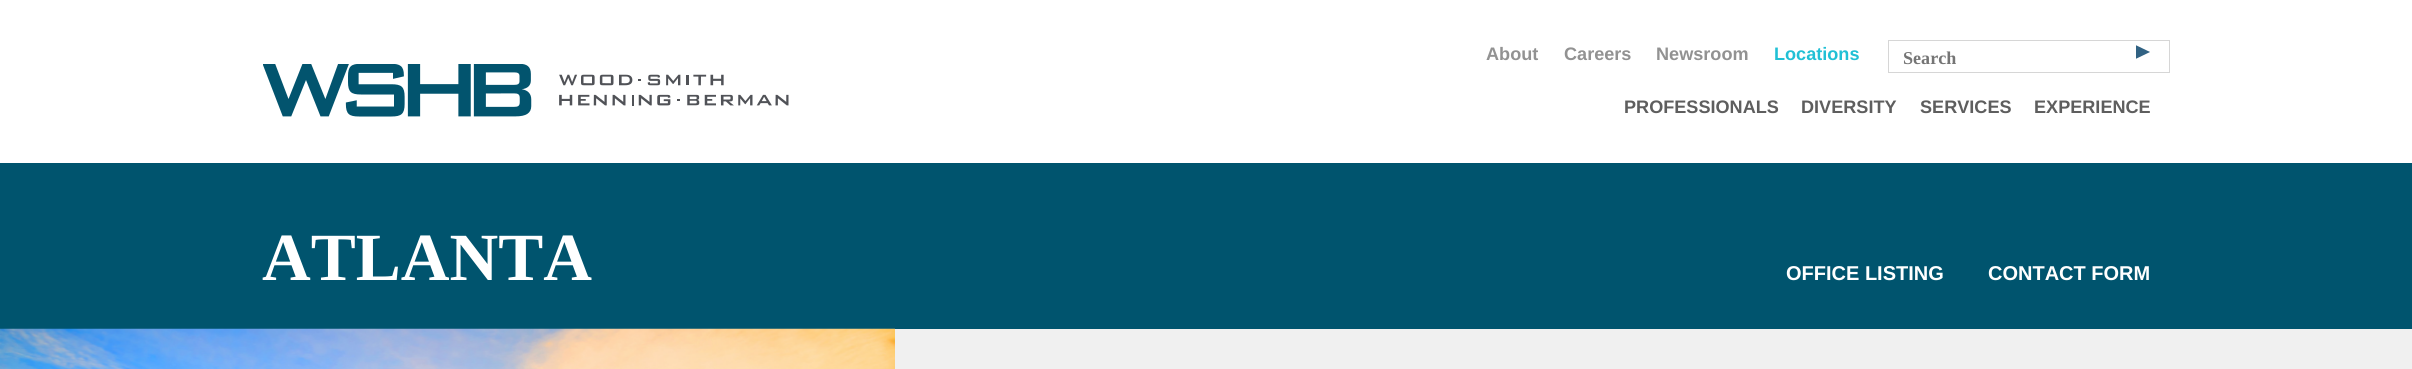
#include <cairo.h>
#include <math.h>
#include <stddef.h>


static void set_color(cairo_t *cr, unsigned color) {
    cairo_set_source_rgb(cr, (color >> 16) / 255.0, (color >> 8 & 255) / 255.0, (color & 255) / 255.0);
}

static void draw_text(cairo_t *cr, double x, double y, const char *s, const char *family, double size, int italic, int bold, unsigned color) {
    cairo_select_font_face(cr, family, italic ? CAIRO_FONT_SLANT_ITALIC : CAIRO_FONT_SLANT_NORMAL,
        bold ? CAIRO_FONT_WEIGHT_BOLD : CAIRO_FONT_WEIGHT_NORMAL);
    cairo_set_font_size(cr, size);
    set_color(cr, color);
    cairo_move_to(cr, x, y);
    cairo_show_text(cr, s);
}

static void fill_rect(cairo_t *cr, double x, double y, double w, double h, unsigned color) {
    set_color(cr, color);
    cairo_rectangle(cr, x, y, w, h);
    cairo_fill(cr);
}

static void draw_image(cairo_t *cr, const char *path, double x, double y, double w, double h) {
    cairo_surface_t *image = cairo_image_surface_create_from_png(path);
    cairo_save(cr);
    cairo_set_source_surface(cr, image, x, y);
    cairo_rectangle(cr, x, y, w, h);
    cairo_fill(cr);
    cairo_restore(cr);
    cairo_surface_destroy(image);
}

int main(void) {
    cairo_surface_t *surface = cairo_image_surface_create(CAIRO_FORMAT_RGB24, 2412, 369);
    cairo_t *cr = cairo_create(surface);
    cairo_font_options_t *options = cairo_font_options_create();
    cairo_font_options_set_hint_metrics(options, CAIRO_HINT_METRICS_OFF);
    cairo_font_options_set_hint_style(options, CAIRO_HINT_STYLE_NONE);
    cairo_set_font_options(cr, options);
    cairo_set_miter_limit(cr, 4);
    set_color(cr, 0xFFFFFF);
    cairo_paint(cr);
    draw_image(cr, "assets/img1.png", 263, 64, 526, 53);
    draw_text(cr, 1486, 60, "About", "Liberation Sans", 18.1, 0, 1, 0x929292);
    draw_text(cr, 1564, 60, "Careers", "Liberation Sans", 18.1, 0, 1, 0x929292);
    draw_text(cr, 1656, 60, "Newsroom", "Liberation Sans", 18.1, 0, 1, 0x929292);
    draw_text(cr, 1774, 60, "Locations", "Liberation Sans", 18.1, 0, 1, 0x21C0D5);
    cairo_rectangle(cr, 1888.5, 40.5, 281, 32);
    set_color(cr, 0xD6D6D6);
    cairo_set_line_width(cr, 1);
    cairo_stroke(cr);
    draw_text(cr, 1903, 64, "Search", "Liberation Serif", 18.1, 0, 1, 0x757575);
    cairo_save(cr);
    cairo_rectangle(cr, 2136, 44, 15, 15);
    cairo_clip(cr);
    set_color(cr, 0x316283);
    cairo_new_path(cr);
    cairo_move_to(cr, 2135.5, 59);
    cairo_line_to(cr, 2150, 52);
    cairo_line_to(cr, 2135.5, 45);
    cairo_line_to(cr, 2135.5, 59);
    cairo_fill(cr);
    cairo_restore(cr);
    draw_text(cr, 1624, 113, "PROFESSIONALS", "Liberation Sans", 18.1, 0, 1, 0x5E5E5E);
    draw_text(cr, 1801, 113, "DIVERSITY", "Liberation Sans", 18.1, 0, 1, 0x5E5E5E);
    draw_text(cr, 1920, 113, "SERVICES", "Liberation Sans", 18.1, 0, 1, 0x5E5E5E);
    draw_text(cr, 2034, 113, "EXPERIENCE", "Liberation Sans", 18.1, 0, 1, 0x5E5E5E);
    fill_rect(cr, 0, 163, 2412, 166, 0x00546E);
    draw_text(cr, 262, 280, "ATLANTA", "Liberation Serif", 67.5, 0, 1, 0xFFFFFF);
    draw_text(cr, 1786, 280, "OFFICE LISTING", "Liberation Sans", 20, 0, 1, 0xFFFFFF);
    draw_text(cr, 1988, 280, "CONTACT FORM", "Liberation Sans", 20, 0, 1, 0xFFFFFF);
    draw_image(cr, "assets/img2.png", 0, 328, 895, 41);
    fill_rect(cr, 895, 329, 1517, 40, 0xF0F0F0);
    cairo_surface_write_to_png(surface, "output.png");
    cairo_font_options_destroy(options);
    cairo_destroy(cr);
    cairo_surface_destroy(surface);
    return 0;
}
